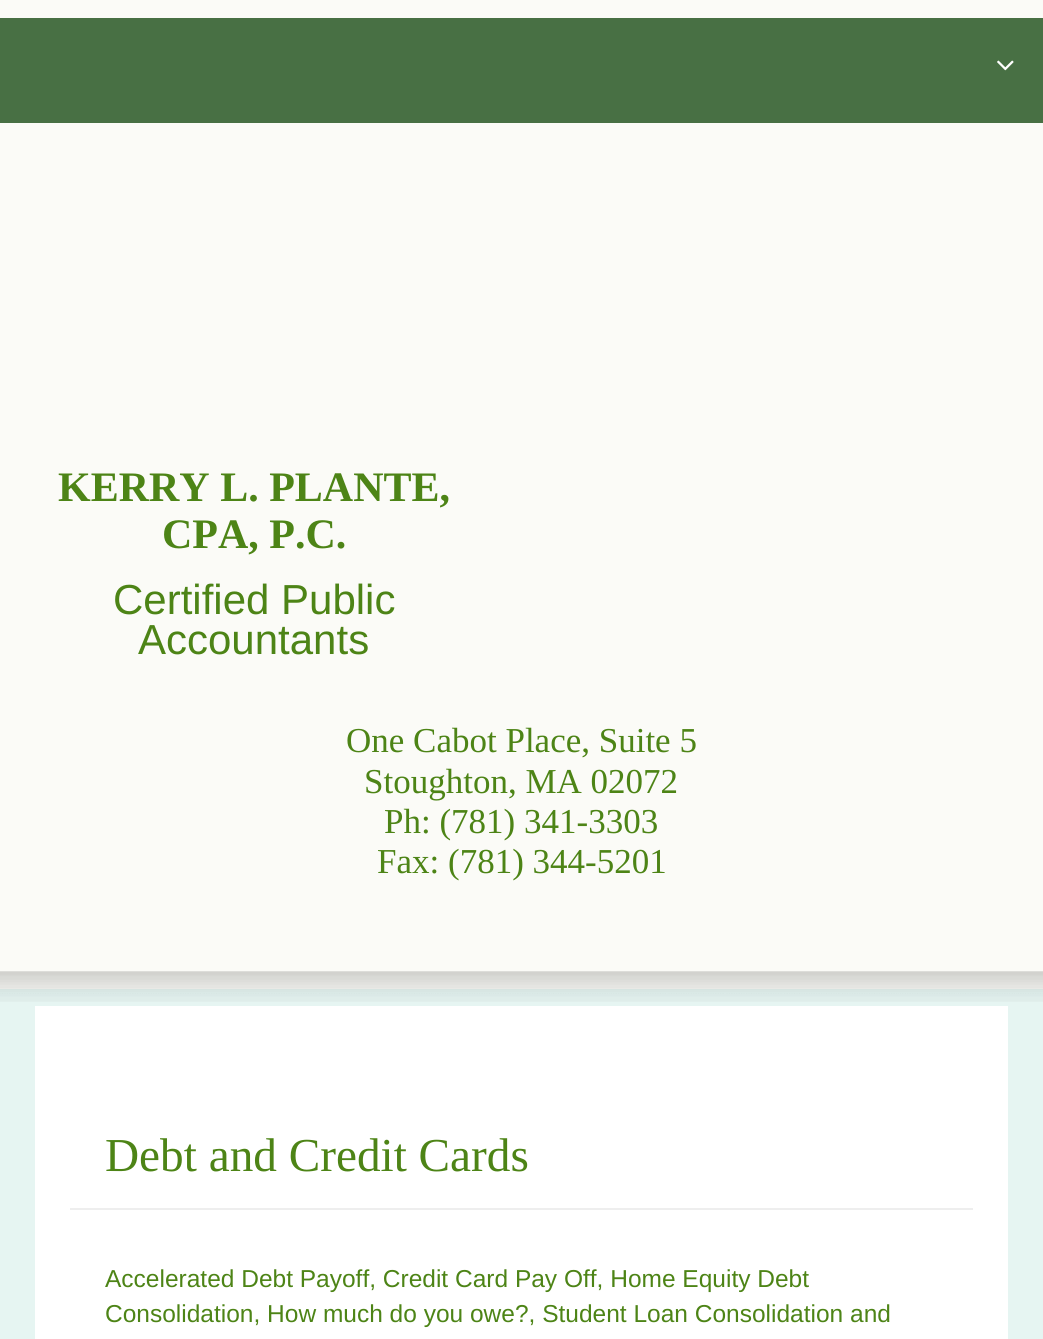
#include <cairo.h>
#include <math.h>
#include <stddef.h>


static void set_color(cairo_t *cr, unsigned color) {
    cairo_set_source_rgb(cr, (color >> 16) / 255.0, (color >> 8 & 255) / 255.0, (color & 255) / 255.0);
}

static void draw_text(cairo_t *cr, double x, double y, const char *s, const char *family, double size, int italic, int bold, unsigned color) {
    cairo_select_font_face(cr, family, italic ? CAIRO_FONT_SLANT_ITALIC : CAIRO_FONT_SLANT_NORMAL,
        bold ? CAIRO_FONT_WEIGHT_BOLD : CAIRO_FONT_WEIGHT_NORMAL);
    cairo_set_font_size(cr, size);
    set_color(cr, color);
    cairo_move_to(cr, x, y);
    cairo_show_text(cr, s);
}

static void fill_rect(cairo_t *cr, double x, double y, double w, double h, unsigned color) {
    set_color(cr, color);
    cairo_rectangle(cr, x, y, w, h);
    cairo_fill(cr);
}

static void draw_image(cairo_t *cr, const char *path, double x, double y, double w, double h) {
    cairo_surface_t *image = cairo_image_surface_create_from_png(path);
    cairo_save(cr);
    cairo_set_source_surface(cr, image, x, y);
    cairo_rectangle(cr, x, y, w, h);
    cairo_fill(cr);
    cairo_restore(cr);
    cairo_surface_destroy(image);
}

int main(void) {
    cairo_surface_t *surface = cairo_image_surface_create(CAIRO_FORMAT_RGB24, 1043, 1339);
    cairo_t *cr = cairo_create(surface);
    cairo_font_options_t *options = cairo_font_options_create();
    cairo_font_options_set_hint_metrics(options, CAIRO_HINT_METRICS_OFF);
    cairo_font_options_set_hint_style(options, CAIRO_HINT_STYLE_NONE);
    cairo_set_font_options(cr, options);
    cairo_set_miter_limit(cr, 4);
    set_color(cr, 0xFBFBF7);
    cairo_paint(cr);
    fill_rect(cr, 0, 18, 1043, 105, 0x487044);
    draw_image(cr, "assets/img1.png", 997, 60, 17, 11);
    draw_text(cr, 58, 501, "KERRY L. PLANTE,", "Liberation Serif", 42, 0, 1, 0x4D8416);
    draw_text(cr, 162, 548, "CPA, P.C.", "Liberation Serif", 42, 0, 1, 0x4D8416);
    draw_text(cr, 113, 614, "Certified Public", "Liberation Sans", 42, 0, 0, 0x4D8416);
    draw_text(cr, 138, 654, "Accountants", "Liberation Sans", 42, 0, 0, 0x4D8416);
    draw_text(cr, 346, 752, "One Cabot Place, Suite 5", "Liberation Serif", 35, 0, 0, 0x4D8416);
    draw_text(cr, 364, 793, "Stoughton, MA 02072", "Liberation Serif", 35, 0, 0, 0x4D8416);
    draw_text(cr, 384, 833, "Ph: (781) 341-3303", "Liberation Serif", 35, 0, 0, 0x4D8416);
    draw_text(cr, 377, 873, "Fax: (781) 344-5201", "Liberation Serif", 35, 0, 0, 0x4D8416);
    fill_rect(cr, 0, 989, 1043, 350, 0xE6F5F2);
    draw_image(cr, "assets/img2.png", 0, 971, 1043, 31);
    fill_rect(cr, 35, 1006, 973, 333, 0xFFFFFF);
    fill_rect(cr, 70, 1208, 903, 2, 0xEEEEEE);
    draw_text(cr, 105, 1171, "Debt and Credit Cards", "Liberation Serif", 47.25, 0, 0, 0x4D8416);
    draw_text(cr, 105, 1287, "Accelerated Debt Payoff, Credit Card Pay Off, Home Equity Debt", "Liberation Sans", 24.5, 0, 0, 0x4D8416);
    draw_text(cr, 105, 1322, "Consolidation, How much do you owe?, Student Loan Consolidation and", "Liberation Sans", 24.5, 0, 0, 0x4D8416);
    cairo_surface_write_to_png(surface, "output.png");
    cairo_font_options_destroy(options);
    cairo_destroy(cr);
    cairo_surface_destroy(surface);
    return 0;
}
